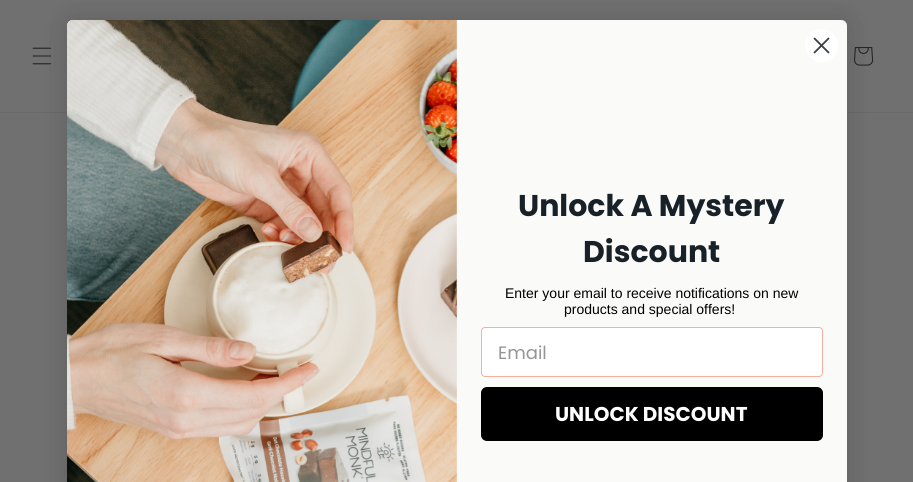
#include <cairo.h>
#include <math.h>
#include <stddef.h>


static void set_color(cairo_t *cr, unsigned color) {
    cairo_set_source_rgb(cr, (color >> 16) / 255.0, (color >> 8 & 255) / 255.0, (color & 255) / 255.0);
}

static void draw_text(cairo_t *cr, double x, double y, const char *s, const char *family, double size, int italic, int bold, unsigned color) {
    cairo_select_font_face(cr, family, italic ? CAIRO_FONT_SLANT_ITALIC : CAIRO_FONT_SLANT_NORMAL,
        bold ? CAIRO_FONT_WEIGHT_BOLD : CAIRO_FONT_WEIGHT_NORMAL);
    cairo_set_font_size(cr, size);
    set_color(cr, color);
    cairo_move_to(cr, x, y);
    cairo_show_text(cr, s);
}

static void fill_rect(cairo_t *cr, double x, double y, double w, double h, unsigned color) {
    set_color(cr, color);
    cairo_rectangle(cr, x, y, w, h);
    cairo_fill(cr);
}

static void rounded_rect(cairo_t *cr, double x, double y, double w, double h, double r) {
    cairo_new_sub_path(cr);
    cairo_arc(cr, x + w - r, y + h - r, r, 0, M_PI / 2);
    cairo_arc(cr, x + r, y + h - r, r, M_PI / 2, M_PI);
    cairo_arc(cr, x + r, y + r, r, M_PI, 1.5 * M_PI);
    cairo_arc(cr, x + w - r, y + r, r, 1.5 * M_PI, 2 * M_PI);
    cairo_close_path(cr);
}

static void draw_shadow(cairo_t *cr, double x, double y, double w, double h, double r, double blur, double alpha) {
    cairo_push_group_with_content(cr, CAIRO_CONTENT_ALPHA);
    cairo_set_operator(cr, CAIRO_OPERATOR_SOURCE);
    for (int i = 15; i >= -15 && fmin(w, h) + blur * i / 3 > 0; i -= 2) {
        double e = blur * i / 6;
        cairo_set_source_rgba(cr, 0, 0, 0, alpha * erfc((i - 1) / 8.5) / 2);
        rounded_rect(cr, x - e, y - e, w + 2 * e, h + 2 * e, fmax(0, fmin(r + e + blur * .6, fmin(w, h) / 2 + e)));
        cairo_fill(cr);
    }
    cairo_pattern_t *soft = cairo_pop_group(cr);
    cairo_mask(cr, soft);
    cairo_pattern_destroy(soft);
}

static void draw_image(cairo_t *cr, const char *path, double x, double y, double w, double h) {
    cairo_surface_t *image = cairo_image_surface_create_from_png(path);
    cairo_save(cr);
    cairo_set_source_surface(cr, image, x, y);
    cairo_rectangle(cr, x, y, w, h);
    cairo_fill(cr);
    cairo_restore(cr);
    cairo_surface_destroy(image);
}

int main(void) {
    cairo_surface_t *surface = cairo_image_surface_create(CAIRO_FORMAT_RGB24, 913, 482);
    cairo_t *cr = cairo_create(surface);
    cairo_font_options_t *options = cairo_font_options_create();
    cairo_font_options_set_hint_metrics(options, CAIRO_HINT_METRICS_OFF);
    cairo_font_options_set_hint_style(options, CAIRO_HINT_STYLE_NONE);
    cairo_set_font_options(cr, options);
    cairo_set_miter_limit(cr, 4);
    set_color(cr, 0x707070);
    cairo_paint(cr);
    fill_rect(cr, 0, 112, 913, 1, 0x6A6A6A);
    draw_image(cr, "assets/img1.png", 32, 47, 20, 18);
    draw_image(cr, "assets/img2.png", 854, 47, 20, 19);
    set_color(cr, 0x000000);
    draw_shadow(cr, 67, 20, 780, 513, 6, 15, 0.15);
    set_color(cr, 0xFAFAF9);
    cairo_new_path(cr);
    cairo_move_to(cr, 73, 20);
    cairo_line_to(cr, 841, 20);
    cairo_curve_to(cr, 844.5, 20, 847, 22.5, 847, 26);
    cairo_line_to(cr, 847, 482);
    cairo_line_to(cr, 67, 482);
    cairo_line_to(cr, 67, 26);
    cairo_curve_to(cr, 67, 22.5, 69.5, 20, 73, 20);
    cairo_close_path(cr);
    cairo_fill(cr);
    set_color(cr, 0xFFFFFF);
    cairo_arc(cr, 821.5, 45.5, 16.5, 0, 2 * M_PI);
    cairo_fill(cr);
    cairo_new_path(cr);
    cairo_move_to(cr, 814.5, 38.5);
    cairo_line_to(cr, 828.5, 52.5);
    cairo_move_to(cr, 814.5, 52.5);
    cairo_line_to(cr, 828.5, 38.5);
    cairo_close_path(cr);
    set_color(cr, 0x373F47);
    cairo_set_line_width(cr, 1.8);
    cairo_set_line_cap(cr, CAIRO_LINE_CAP_ROUND);
    cairo_set_line_join(cr, CAIRO_LINE_JOIN_ROUND);
    cairo_stroke(cr);
    draw_image(cr, "assets/img3.png", 67, 20, 390, 462);
    draw_text(cr, 518, 216, "Unlock A Mystery", "Poppins", 30, 0, 1, 0x182028);
    draw_text(cr, 583, 262, "Discount", "Poppins", 30, 0, 1, 0x182028);
    draw_text(cr, 505, 298, "Enter your email to receive notifications on new", "Liberation Sans", 14, 0, 0, 0x000000);
    draw_text(cr, 564, 314, "products and special offers!", "Liberation Sans", 14, 0, 0, 0x000000);
    set_color(cr, 0xFFFFFF);
    rounded_rect(cr, 481.5, 327.5, 341, 49, 3.5);
    cairo_fill_preserve(cr);
    set_color(cr, 0xF7AE9F);
    cairo_set_line_width(cr, 1);
    cairo_set_line_cap(cr, CAIRO_LINE_CAP_BUTT);
    cairo_set_line_join(cr, CAIRO_LINE_JOIN_MITER);
    cairo_stroke(cr);
    draw_text(cr, 498, 359, "Email", "Poppins", 18, 0, 0, 0x949596);
    set_color(cr, 0x000000);
    rounded_rect(cr, 481, 387, 342, 54, 6);
    cairo_fill(cr);
    draw_text(cr, 555, 421, "UNLOCK DISCOUNT", "Poppins", 20, 0, 1, 0xFFFFFF);
    cairo_surface_write_to_png(surface, "output.png");
    cairo_font_options_destroy(options);
    cairo_destroy(cr);
    cairo_surface_destroy(surface);
    return 0;
}
